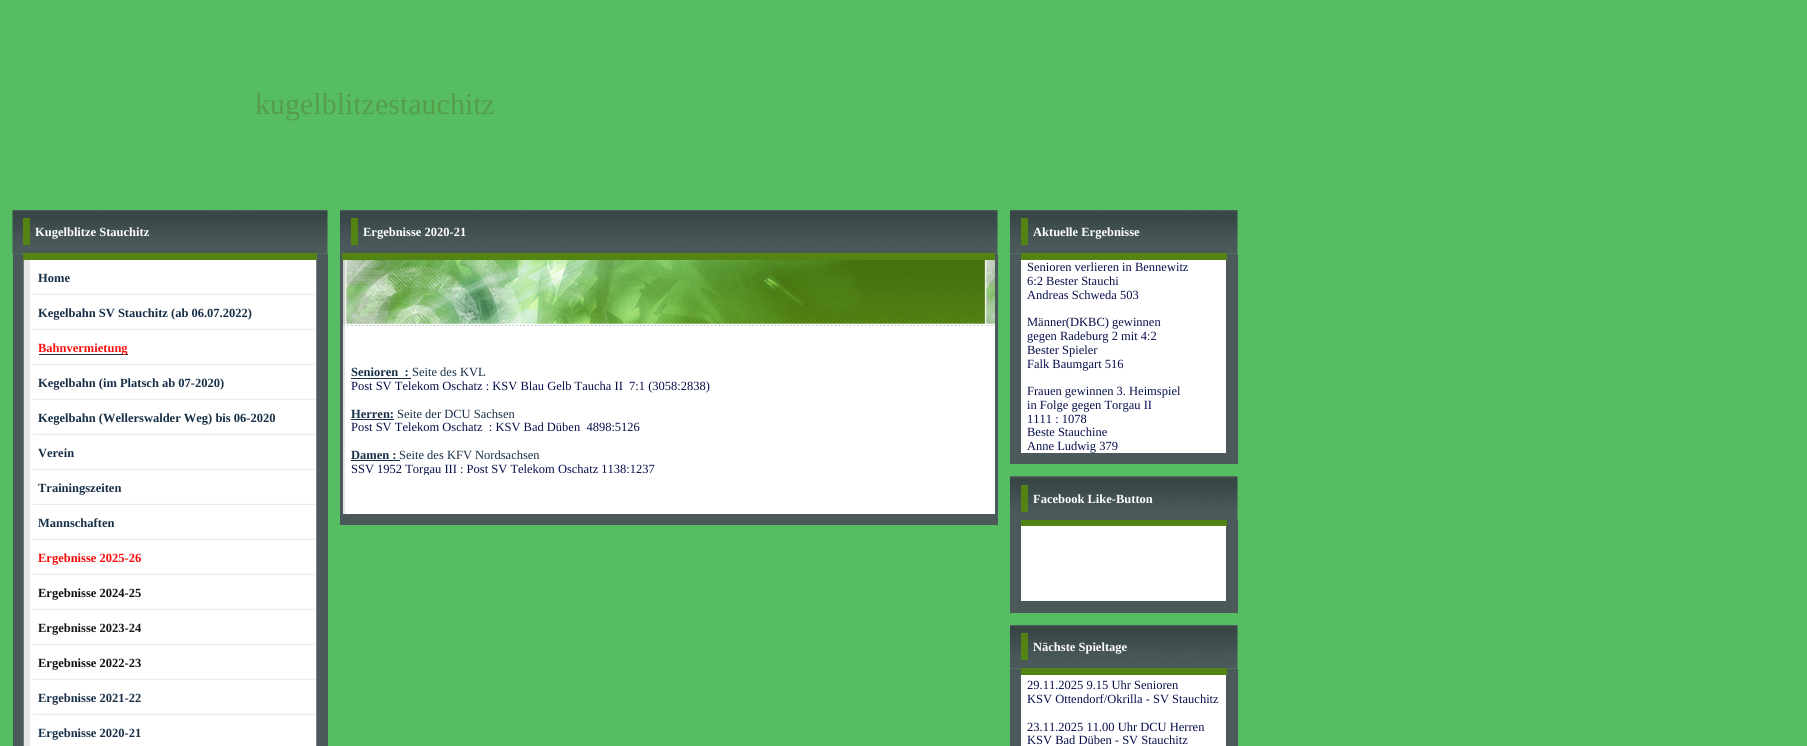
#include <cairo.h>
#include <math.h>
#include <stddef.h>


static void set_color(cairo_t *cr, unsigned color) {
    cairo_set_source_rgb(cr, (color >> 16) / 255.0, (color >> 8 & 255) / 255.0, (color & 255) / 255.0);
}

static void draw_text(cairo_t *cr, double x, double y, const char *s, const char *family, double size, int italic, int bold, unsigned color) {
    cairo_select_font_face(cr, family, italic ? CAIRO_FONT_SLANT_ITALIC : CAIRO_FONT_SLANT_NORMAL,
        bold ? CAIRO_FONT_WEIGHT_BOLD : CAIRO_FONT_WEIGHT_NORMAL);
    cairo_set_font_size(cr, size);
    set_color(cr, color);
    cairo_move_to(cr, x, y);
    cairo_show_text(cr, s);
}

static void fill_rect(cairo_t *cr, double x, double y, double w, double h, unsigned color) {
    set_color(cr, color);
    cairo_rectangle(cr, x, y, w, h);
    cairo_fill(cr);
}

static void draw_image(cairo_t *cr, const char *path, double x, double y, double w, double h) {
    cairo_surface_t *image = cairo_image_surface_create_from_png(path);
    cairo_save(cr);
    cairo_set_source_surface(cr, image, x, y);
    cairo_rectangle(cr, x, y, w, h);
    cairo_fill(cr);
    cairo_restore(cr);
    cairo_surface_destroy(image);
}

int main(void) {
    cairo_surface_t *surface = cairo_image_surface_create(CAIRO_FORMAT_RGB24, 1807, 746);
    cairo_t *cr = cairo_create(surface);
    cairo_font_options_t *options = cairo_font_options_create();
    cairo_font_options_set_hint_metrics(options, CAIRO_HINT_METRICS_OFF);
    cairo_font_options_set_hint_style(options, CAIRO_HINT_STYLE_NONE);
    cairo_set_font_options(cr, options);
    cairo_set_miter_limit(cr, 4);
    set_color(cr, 0x57BD63);
    cairo_paint(cr);
    draw_text(cr, 255, 114, "kugelblitzestauchitz", "Liberation Serif", 30, 0, 0, 0x559E47);
    draw_image(cr, "assets/img1.png", 12, 210, 316, 44);
    fill_rect(cr, 23, 218, 7, 27, 0x528313);
    draw_text(cr, 35, 236, "Kugelblitze Stauchitz", "Liberation Serif", 12.5, 0, 1, 0xFFFFFF);
    fill_rect(cr, 13, 254, 315, 492, 0x4B595B);
    fill_rect(cr, 23, 253, 294, 7, 0x528313);
    draw_image(cr, "assets/img2.png", 23, 260, 294, 35);
    draw_text(cr, 38, 282, "Home", "Liberation Serif", 12.5, 0, 1, 0x172F47);
    draw_image(cr, "assets/img2.png", 23, 295, 294, 35);
    draw_text(cr, 38, 317, "Kegelbahn SV Stauchitz (ab 06.07.2022)", "Liberation Serif", 12.5, 0, 1, 0x172F47);
    draw_image(cr, "assets/img2.png", 23, 330, 294, 35);
    fill_rect(cr, 39, 354, 89, 1, 0x172F47);
    draw_text(cr, 38, 352, "Bahnvermietung", "Liberation Serif", 12.5, 0, 1, 0xF81111);
    draw_image(cr, "assets/img2.png", 23, 365, 294, 35);
    draw_text(cr, 38, 387, "Kegelbahn (im Platsch ab 07-2020)", "Liberation Serif", 12.5, 0, 1, 0x172F47);
    draw_image(cr, "assets/img2.png", 23, 400, 294, 35);
    draw_text(cr, 38, 422, "Kegelbahn (Wellerswalder Weg) bis 06-2020", "Liberation Serif", 12.5, 0, 1, 0x172F47);
    draw_image(cr, "assets/img2.png", 23, 435, 294, 35);
    draw_text(cr, 38, 457, "Verein", "Liberation Serif", 12.5, 0, 1, 0x172F47);
    draw_image(cr, "assets/img2.png", 23, 470, 294, 35);
    draw_text(cr, 38, 492, "Trainingszeiten", "Liberation Serif", 12.5, 0, 1, 0x172F47);
    draw_image(cr, "assets/img2.png", 23, 505, 294, 35);
    draw_text(cr, 38, 527, "Mannschaften", "Liberation Serif", 12.5, 0, 1, 0x172F47);
    draw_image(cr, "assets/img2.png", 23, 540, 294, 35);
    draw_text(cr, 38, 562, "Ergebnisse 2025-26", "Liberation Serif", 12.5, 0, 1, 0xF80808);
    draw_image(cr, "assets/img2.png", 23, 575, 294, 35);
    draw_text(cr, 38, 597, "Ergebnisse 2024-25", "Liberation Serif", 12.5, 0, 1, 0x0F0F0F);
    draw_image(cr, "assets/img2.png", 23, 610, 294, 35);
    draw_text(cr, 38, 632, "Ergebnisse 2023-24", "Liberation Serif", 12.5, 0, 1, 0x181717);
    draw_image(cr, "assets/img2.png", 23, 645, 294, 35);
    draw_text(cr, 38, 667, "Ergebnisse 2022-23", "Liberation Serif", 12.5, 0, 1, 0x0F0F0F);
    draw_image(cr, "assets/img2.png", 23, 680, 294, 35);
    draw_text(cr, 38, 702, "Ergebnisse 2021-22", "Liberation Serif", 12.5, 0, 1, 0x172F47);
    draw_image(cr, "assets/img3.png", 23, 715, 294, 31);
    draw_text(cr, 38, 737, "Ergebnisse 2020-21", "Liberation Serif", 12.5, 0, 1, 0x172F47);
    draw_image(cr, "assets/img4.png", 340, 210, 658, 44);
    fill_rect(cr, 351, 218, 7, 27, 0x528313);
    draw_text(cr, 363, 236, "Ergebnisse 2020-21", "Liberation Serif", 12.5, 0, 1, 0xFFFFFF);
    fill_rect(cr, 340, 254, 658, 271, 0x4B595B);
    fill_rect(cr, 342, 253, 653, 7, 0x528313);
    fill_rect(cr, 343, 260, 2, 66, 0xCECECE);
    draw_image(cr, "assets/img5.png", 345, 260, 650, 66);
    fill_rect(cr, 343, 326, 2, 188, 0xE5E5E5);
    fill_rect(cr, 345, 326, 650, 188, 0xFFFFFF);
    draw_text(cr, 351, 376, "Senioren  :", "Liberation Serif", 12.5, 0, 1, 0x172F47);
    fill_rect(cr, 351, 378, 60, 1, 0x172F47);
    draw_text(cr, 412, 376, "Seite des KVL", "Liberation Serif", 12.5, 0, 0, 0x172F47);
    draw_text(cr, 351, 390, "Post SV Telekom Oschatz : KSV Blau Gelb Taucha II  7:1 (3058:2838)", "Liberation Serif", 12.5, 0, 0, 0x070F4B);
    draw_text(cr, 351, 418, "Herren:", "Liberation Serif", 12.5, 0, 1, 0x172F47);
    fill_rect(cr, 351, 419, 43, 1, 0x172F47);
    draw_text(cr, 397, 418, "Seite der DCU Sachsen", "Liberation Serif", 12.5, 0, 0, 0x172F47);
    draw_text(cr, 351, 431, "Post SV Telekom Oschatz  : KSV Bad Düben  4898:5126", "Liberation Serif", 12.5, 0, 0, 0x070F4B);
    draw_text(cr, 351, 459, "Damen :", "Liberation Serif", 12.5, 0, 1, 0x172F47);
    fill_rect(cr, 351, 460, 49, 1, 0x172F47);
    draw_text(cr, 399, 459, "Seite des KFV Nordsachsen", "Liberation Serif", 12.5, 0, 0, 0x172F47);
    cairo_save(cr);
    cairo_rectangle(cr, 351, 365, 638, 110);
    cairo_clip(cr);
    draw_text(cr, 351, 473, "SSV 1952 Torgau III : Post SV Telekom Oschatz 1138:1237", "Liberation Serif", 12.5, 0, 0, 0x070F4B);
    cairo_restore(cr);
    draw_image(cr, "assets/img6.png", 1010, 210, 228, 44);
    fill_rect(cr, 1021, 218, 7, 27, 0x528313);
    draw_text(cr, 1033, 236, "Aktuelle Ergebnisse", "Liberation Serif", 12.5, 0, 1, 0xFFFFFF);
    fill_rect(cr, 1010, 254, 228, 210, 0x4B595B);
    fill_rect(cr, 1021, 253, 206, 7, 0x528313);
    fill_rect(cr, 1021, 260, 205, 193, 0xFFFFFF);
    draw_text(cr, 1027, 271, "Senioren verlieren in Bennewitz", "Liberation Serif", 12.5, 0, 0, 0x070F4B);
    draw_text(cr, 1027, 285, "6:2 Bester Stauchi", "Liberation Serif", 12.5, 0, 0, 0x070F4B);
    draw_text(cr, 1027, 299, "Andreas Schweda 503", "Liberation Serif", 12.5, 0, 0, 0x070F4B);
    draw_text(cr, 1027, 326, "Männer(DKBC) gewinnen", "Liberation Serif", 12.5, 0, 0, 0x070F4B);
    draw_text(cr, 1027, 340, "gegen Radeburg 2 mit 4:2", "Liberation Serif", 12.5, 0, 0, 0x070F4B);
    draw_text(cr, 1027, 354, "Bester Spieler", "Liberation Serif", 12.5, 0, 0, 0x070F4B);
    draw_text(cr, 1027, 368, "Falk Baumgart 516", "Liberation Serif", 12.5, 0, 0, 0x070F4B);
    draw_text(cr, 1027, 395, "Frauen gewinnen 3. Heimspiel", "Liberation Serif", 12.5, 0, 0, 0x070F4B);
    draw_text(cr, 1027, 409, "in Folge gegen Torgau II", "Liberation Serif", 12.5, 0, 0, 0x070F4B);
    draw_text(cr, 1027, 423, "1111 : 1078", "Liberation Serif", 12.5, 0, 0, 0x070F4B);
    draw_text(cr, 1027, 436, "Beste Stauchine", "Liberation Serif", 12.5, 0, 0, 0x070F4B);
    draw_text(cr, 1027, 450, "Anne Ludwig 379", "Liberation Serif", 12.5, 0, 0, 0x070F4B);
    draw_image(cr, "assets/img7.png", 1010, 476, 228, 44);
    fill_rect(cr, 1021, 485, 7, 27, 0x528313);
    draw_text(cr, 1033, 503, "Facebook Like-Button", "Liberation Serif", 12.5, 0, 1, 0xFFFFFF);
    fill_rect(cr, 1010, 520, 228, 93, 0x4B595B);
    fill_rect(cr, 1021, 520, 206, 7, 0x528313);
    fill_rect(cr, 1021, 526, 205, 75, 0xFFFFFF);
    draw_image(cr, "assets/img6.png", 1010, 625, 228, 44);
    fill_rect(cr, 1021, 633, 7, 27, 0x528313);
    draw_text(cr, 1033, 651, "Nächste Spieltage", "Liberation Serif", 12.5, 0, 1, 0xFFFFFF);
    fill_rect(cr, 1010, 669, 228, 77, 0x4B595B);
    fill_rect(cr, 1021, 668, 206, 7, 0x528313);
    fill_rect(cr, 1021, 675, 205, 71, 0xFFFFFF);
    draw_text(cr, 1027, 689, "29.11.2025 9.15 Uhr Senioren", "Liberation Serif", 12.5, 0, 0, 0x070F4B);
    draw_text(cr, 1027, 703, "KSV Ottendorf/Okrilla - SV Stauchitz", "Liberation Serif", 12.5, 0, 0, 0x070F4B);
    draw_text(cr, 1027, 731, "23.11.2025 11.00 Uhr DCU Herren", "Liberation Serif", 12.5, 0, 0, 0x070F4B);
    draw_text(cr, 1027, 744, "KSV Bad Düben - SV Stauchitz", "Liberation Serif", 12.5, 0, 0, 0x070F4B);
    cairo_surface_write_to_png(surface, "output.png");
    cairo_font_options_destroy(options);
    cairo_destroy(cr);
    cairo_surface_destroy(surface);
    return 0;
}
